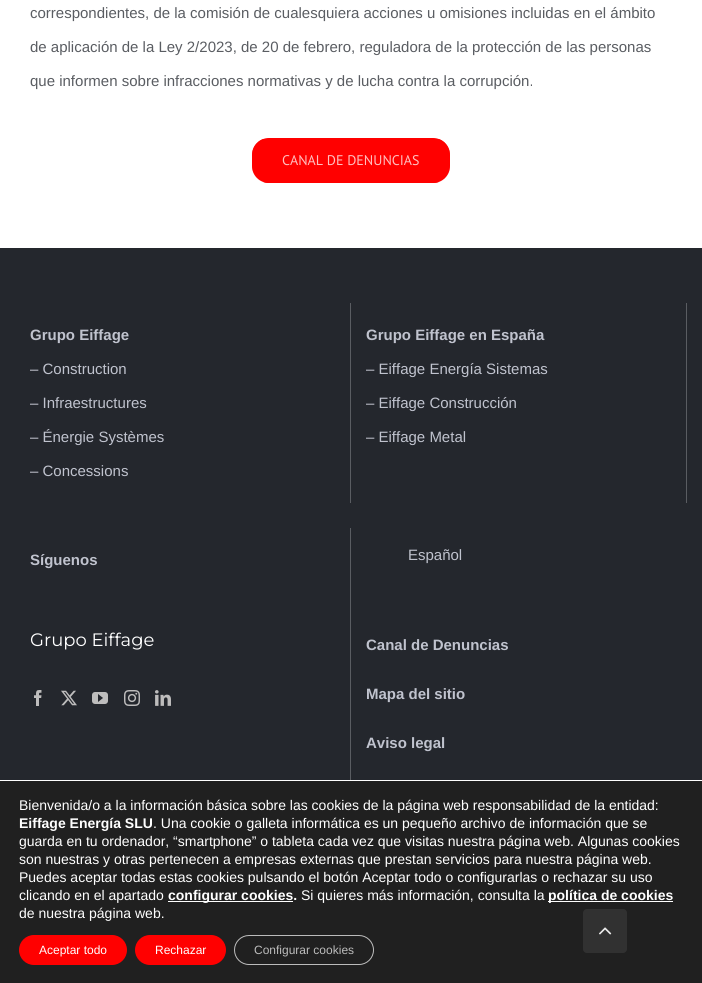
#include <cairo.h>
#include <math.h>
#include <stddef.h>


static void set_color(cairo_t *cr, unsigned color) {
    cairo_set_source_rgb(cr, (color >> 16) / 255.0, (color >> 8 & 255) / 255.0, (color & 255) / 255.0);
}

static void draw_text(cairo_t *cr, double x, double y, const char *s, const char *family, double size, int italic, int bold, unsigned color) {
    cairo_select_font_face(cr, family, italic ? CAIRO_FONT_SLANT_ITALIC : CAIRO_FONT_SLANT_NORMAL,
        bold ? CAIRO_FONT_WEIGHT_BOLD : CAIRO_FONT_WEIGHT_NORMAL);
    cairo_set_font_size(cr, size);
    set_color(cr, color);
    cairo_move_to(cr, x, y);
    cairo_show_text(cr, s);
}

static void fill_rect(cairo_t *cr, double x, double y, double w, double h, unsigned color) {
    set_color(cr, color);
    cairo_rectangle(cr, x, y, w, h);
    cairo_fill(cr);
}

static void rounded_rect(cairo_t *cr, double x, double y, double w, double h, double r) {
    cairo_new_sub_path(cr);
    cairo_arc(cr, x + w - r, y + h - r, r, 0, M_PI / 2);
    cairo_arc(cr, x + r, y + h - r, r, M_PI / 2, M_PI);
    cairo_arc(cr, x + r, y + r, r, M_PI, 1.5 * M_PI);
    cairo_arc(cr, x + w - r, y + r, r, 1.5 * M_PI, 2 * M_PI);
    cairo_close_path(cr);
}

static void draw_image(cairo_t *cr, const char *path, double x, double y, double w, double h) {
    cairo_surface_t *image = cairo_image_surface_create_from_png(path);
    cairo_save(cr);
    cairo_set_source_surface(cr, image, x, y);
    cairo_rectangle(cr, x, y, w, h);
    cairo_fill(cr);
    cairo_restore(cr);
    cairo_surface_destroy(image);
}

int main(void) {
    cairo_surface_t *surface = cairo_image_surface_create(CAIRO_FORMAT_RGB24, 702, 983);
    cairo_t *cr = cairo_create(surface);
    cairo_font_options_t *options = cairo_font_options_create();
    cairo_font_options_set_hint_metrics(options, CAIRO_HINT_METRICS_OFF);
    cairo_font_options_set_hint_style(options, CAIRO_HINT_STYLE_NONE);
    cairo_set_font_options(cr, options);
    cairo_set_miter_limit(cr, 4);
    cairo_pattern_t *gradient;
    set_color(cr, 0xFFFFFF);
    cairo_paint(cr);
    draw_text(cr, 30, 18, "correspondientes, de la comisión de cualesquiera acciones u omisiones incluidas en el ámbito", "Liberation Sans", 15, 0, 0, 0x5A5D62);
    draw_text(cr, 30, 52, "de aplicación de la Ley 2/2023, de 20 de febrero, reguladora de la protección de las personas", "Liberation Sans", 15, 0, 0, 0x5A5D62);
    draw_text(cr, 30, 86, "que informen sobre infracciones normativas y de lucha contra la corrupción.", "Liberation Sans", 15, 0, 0, 0x5A5D62);
    set_color(cr, 0xFF0000);
    rounded_rect(cr, 252, 138, 198, 45, 17);
    cairo_fill(cr);
    cairo_save(cr);
    rounded_rect(cr, 252, 138, 198, 45, 17);
    cairo_clip(cr);
    gradient = cairo_pattern_create_linear(351, 139, 351, 182);
    cairo_pattern_add_color_stop_rgba(gradient, 0, 1, 0, 0, 1);
    cairo_pattern_add_color_stop_rgba(gradient, 1, 1, 0, 0, 0);
    cairo_set_source(cr, gradient);
    cairo_pattern_destroy(gradient);
    cairo_rectangle(cr, 252, 139, 198, 42);
    cairo_fill(cr);
    gradient = cairo_pattern_create_linear(351, 182, 351, 225);
    cairo_pattern_add_color_stop_rgba(gradient, 0, 1, 0, 0, 1);
    cairo_pattern_add_color_stop_rgba(gradient, 1, 1, 0, 0, 0);
    cairo_set_source(cr, gradient);
    cairo_pattern_destroy(gradient);
    cairo_rectangle(cr, 263, 182, 176, 1);
    cairo_fill(cr);
    cairo_restore(cr);
    draw_text(cr, 282, 165, "CANAL DE DENUNCIAS", "PT Sans", 14, 0, 0, 0xFFBFBF);
    fill_rect(cr, 0, 248, 702, 532, 0x24272D);
    fill_rect(cr, 350, 303, 1, 200, 0x5A5D62);
    draw_text(cr, 30, 340, "Grupo Eiffage", "Liberation Sans", 15, 0, 1, 0xC0C3CE);
    draw_text(cr, 30, 374, "– Construction", "Liberation Sans", 15, 0, 0, 0xC0C3CE);
    draw_text(cr, 30, 408, "– Infraestructures", "Liberation Sans", 15, 0, 0, 0xC0C3CE);
    draw_text(cr, 30, 442, "– Énergie Systèmes", "Liberation Sans", 15, 0, 0, 0xC0C3CE);
    draw_text(cr, 30, 476, "– Concessions", "Liberation Sans", 15, 0, 0, 0xC0C3CE);
    fill_rect(cr, 686, 303, 1, 200, 0x5A5D62);
    draw_text(cr, 366, 340, "Grupo Eiffage en España", "Liberation Sans", 15, 0, 1, 0xC0C3CE);
    draw_text(cr, 366, 374, "– Eiffage Energía Sistemas", "Liberation Sans", 15, 0, 0, 0xC0C3CE);
    draw_text(cr, 366, 408, "– Eiffage Construcción", "Liberation Sans", 15, 0, 0, 0xC0C3CE);
    draw_text(cr, 366, 442, "– Eiffage Metal", "Liberation Sans", 15, 0, 0, 0xC0C3CE);
    fill_rect(cr, 350, 528, 1, 252, 0x5A5D62);
    draw_text(cr, 30, 565, "Síguenos", "Liberation Sans", 15, 0, 1, 0xC0C3CE);
    draw_text(cr, 30, 646, "Grupo Eiffage", "Montserrat Thin", 18, 0, 0, 0xFFFFFF);
    draw_image(cr, "assets/img1.png", 34, 690, 8, 16);
    draw_image(cr, "assets/img2.png", 61, 690, 16, 16);
    draw_image(cr, "assets/img3.png", 92, 692, 16, 12);
    draw_image(cr, "assets/img4.png", 124, 690, 16, 16);
    draw_image(cr, "assets/img5.png", 155, 690, 16, 16);
    draw_text(cr, 408, 560, "Español", "Liberation Sans", 15, 0, 0, 0xC0C3CE);
    draw_text(cr, 366, 650, "Canal de Denuncias", "Liberation Sans", 15, 0, 1, 0xC0C3CE);
    draw_text(cr, 366, 699, "Mapa del sitio", "Liberation Sans", 15, 0, 1, 0xC0C3CE);
    draw_text(cr, 366, 748, "Aviso legal", "Liberation Sans", 15, 0, 1, 0xC0C3CE);
    fill_rect(cr, 0, 781, 702, 202, 0x202020);
    draw_text(cr, 19, 810, "Bienvenida/o a la información básica sobre las cookies de la página web responsabilidad de la entidad:", "Liberation Sans", 14, 0, 0, 0xFFFFFF);
    draw_text(cr, 19, 828, "Eiffage Energía SLU", "Liberation Sans", 14, 0, 1, 0xFFFFFF);
    draw_text(cr, 153, 828, ". Una cookie o galleta informática es un pequeño archivo de información que se", "Liberation Sans", 14, 0, 0, 0xFFFFFF);
    draw_text(cr, 19, 846, "guarda en tu ordenador, “smartphone” o tableta cada vez que visitas nuestra página web. Algunas cookies", "Liberation Sans", 14, 0, 0, 0xFFFFFF);
    draw_text(cr, 19, 864, "son nuestras y otras pertenecen a empresas externas que prestan servicios para nuestra página web.", "Liberation Sans", 14, 0, 0, 0xFFFFFF);
    draw_text(cr, 19, 882, "Puedes aceptar todas estas cookies pulsando el botón Aceptar todo o configurarlas o rechazar su uso", "Liberation Sans", 14, 0, 0, 0xFFFFFF);
    draw_text(cr, 19, 900, "clicando en el apartado", "Liberation Sans", 14, 0, 0, 0xFFFFFF);
    fill_rect(cr, 168, 901, 125, 1, 0xFFFFFF);
    draw_text(cr, 168, 900, "configurar cookies.", "Liberation Sans", 14, 0, 1, 0xFFFFFF);
    draw_text(cr, 301, 900, "Si quieres más información, consulta la", "Liberation Sans", 14, 0, 0, 0xFFFFFF);
    fill_rect(cr, 548, 901, 125, 1, 0xFFFFFF);
    draw_text(cr, 548, 900, "política de cookies", "Liberation Sans", 14, 0, 1, 0xFFFFFF);
    draw_text(cr, 19, 918, "de nuestra página web.", "Liberation Sans", 14, 0, 0, 0xFFFFFF);
    set_color(cr, 0xFF0000);
    rounded_rect(cr, 19, 935, 108, 30, 15);
    cairo_fill(cr);
    draw_text(cr, 39, 954, "Aceptar todo", "Liberation Sans", 12, 0, 0, 0xFFFFFF);
    set_color(cr, 0xFF0000);
    rounded_rect(cr, 135, 935, 91, 30, 15);
    cairo_fill(cr);
    draw_text(cr, 155, 954, "Rechazar", "Liberation Sans", 12, 0, 0, 0xFFFFFF);
    rounded_rect(cr, 234.5, 935.5, 139, 29, 14.5);
    set_color(cr, 0xBCBCBC);
    cairo_set_line_width(cr, 1);
    cairo_stroke(cr);
    draw_text(cr, 254, 954, "Configurar cookies", "Liberation Sans", 12, 0, 0, 0xBCBCBC);
    set_color(cr, 0x313131);
    rounded_rect(cr, 583, 909, 44, 44, 4);
    cairo_fill(cr);
    draw_image(cr, "assets/img6.png", 599, 927, 13, 8);
    cairo_surface_write_to_png(surface, "output.png");
    cairo_font_options_destroy(options);
    cairo_destroy(cr);
    cairo_surface_destroy(surface);
    return 0;
}
